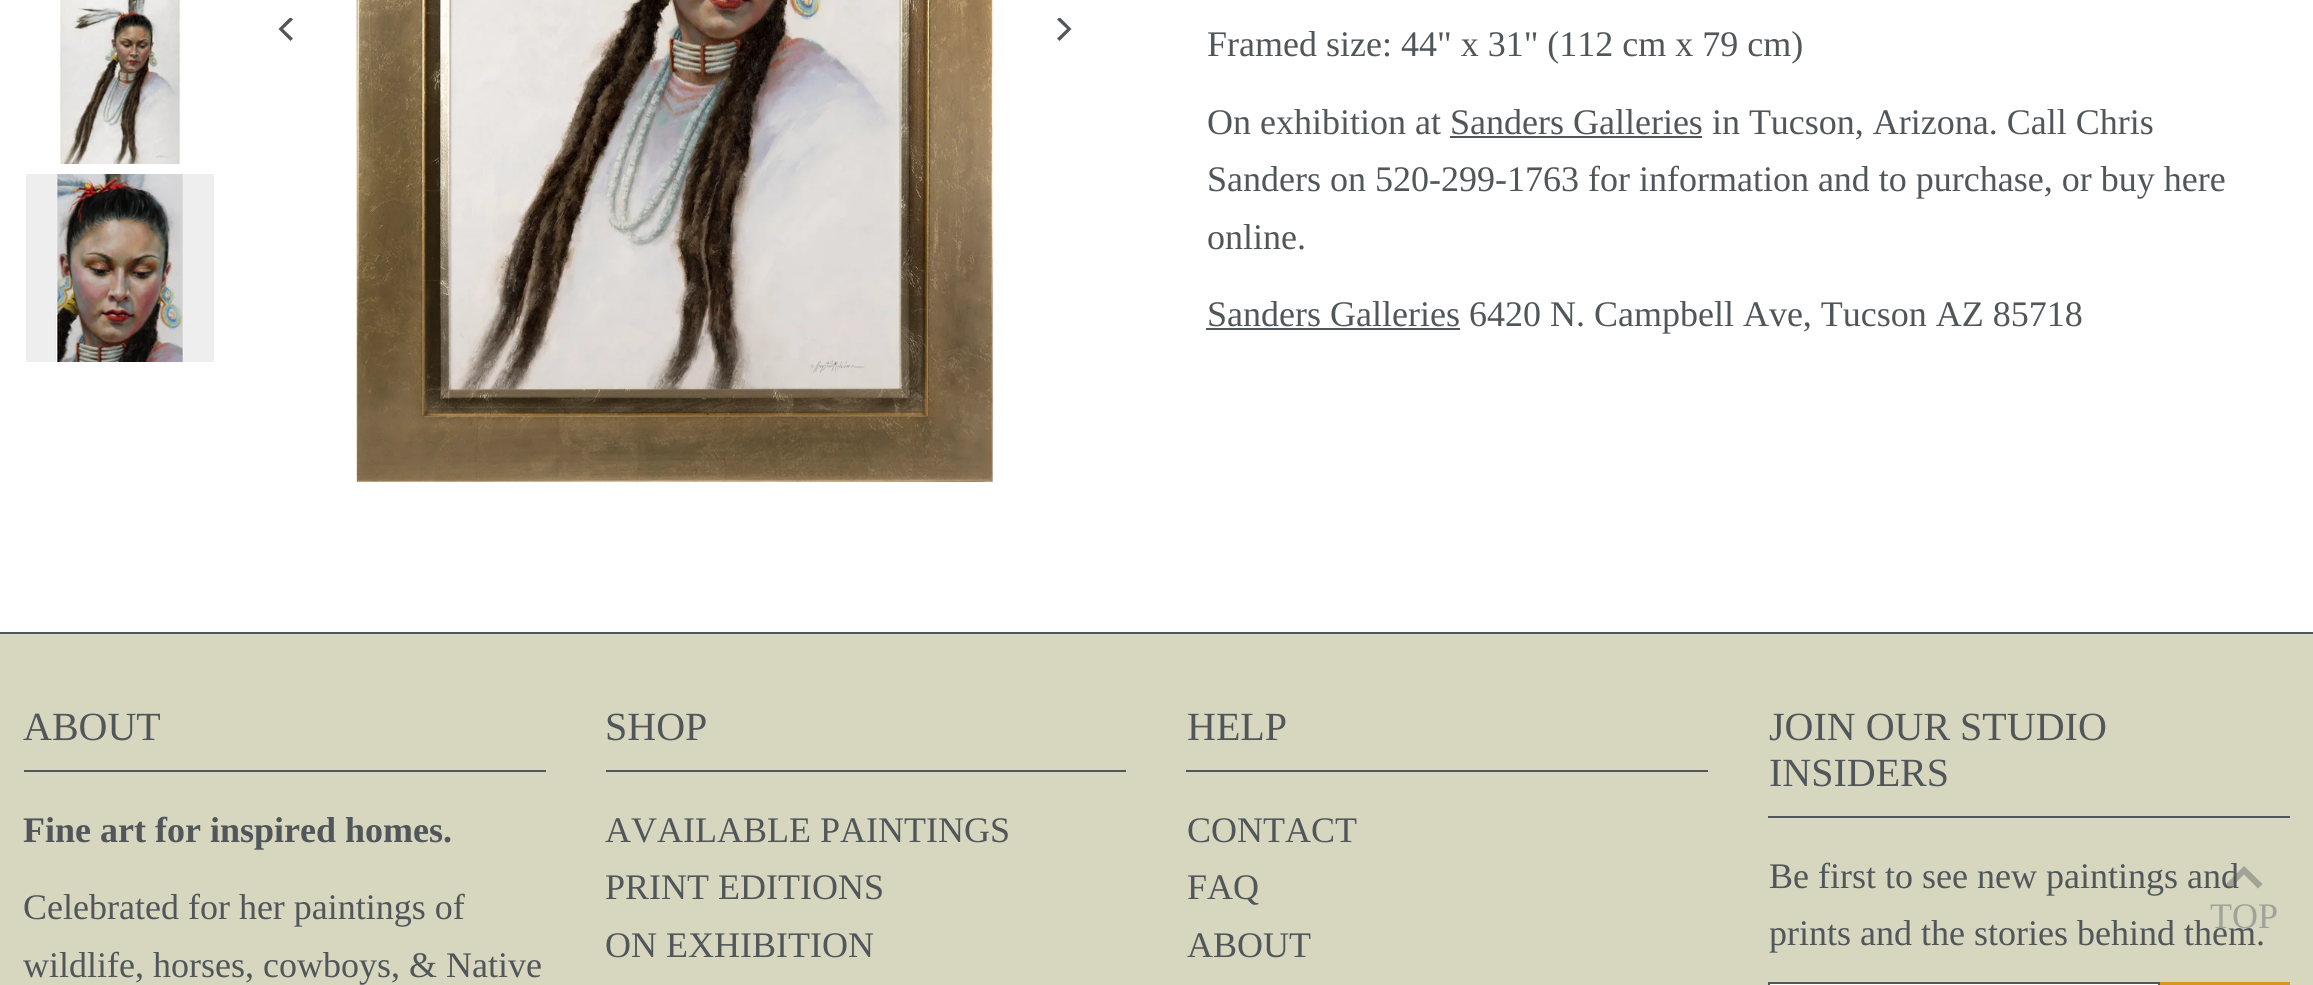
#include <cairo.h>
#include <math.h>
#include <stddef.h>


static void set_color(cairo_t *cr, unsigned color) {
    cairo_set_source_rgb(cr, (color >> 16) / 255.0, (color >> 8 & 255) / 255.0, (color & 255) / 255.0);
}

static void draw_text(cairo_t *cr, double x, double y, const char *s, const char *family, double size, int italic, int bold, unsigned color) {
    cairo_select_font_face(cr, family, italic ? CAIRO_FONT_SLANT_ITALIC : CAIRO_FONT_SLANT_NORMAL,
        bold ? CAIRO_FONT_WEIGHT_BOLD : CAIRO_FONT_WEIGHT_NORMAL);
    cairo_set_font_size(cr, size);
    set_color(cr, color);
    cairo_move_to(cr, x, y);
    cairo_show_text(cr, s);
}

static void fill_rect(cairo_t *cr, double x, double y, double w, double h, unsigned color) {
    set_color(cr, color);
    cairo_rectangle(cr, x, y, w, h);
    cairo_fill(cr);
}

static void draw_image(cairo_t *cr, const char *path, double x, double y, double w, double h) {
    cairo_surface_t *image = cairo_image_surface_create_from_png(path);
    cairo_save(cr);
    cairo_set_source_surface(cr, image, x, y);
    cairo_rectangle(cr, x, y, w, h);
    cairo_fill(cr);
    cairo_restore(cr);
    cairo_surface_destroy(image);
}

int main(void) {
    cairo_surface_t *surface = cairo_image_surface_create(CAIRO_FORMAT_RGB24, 2313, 985);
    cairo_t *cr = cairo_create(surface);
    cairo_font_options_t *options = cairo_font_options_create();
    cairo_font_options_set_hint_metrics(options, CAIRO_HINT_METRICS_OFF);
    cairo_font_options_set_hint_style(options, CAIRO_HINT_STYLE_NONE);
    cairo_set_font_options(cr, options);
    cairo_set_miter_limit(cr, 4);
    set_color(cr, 0xFFFFFF);
    cairo_paint(cr);
    draw_image(cr, "assets/img1.png", 59, 0, 122, 164);
    draw_image(cr, "assets/img2.png", 26, 174, 188, 188);
    cairo_save(cr);
    cairo_rectangle(cr, 276, 18, 24, 24);
    cairo_clip(cr);
    set_color(cr, 0x505659);
    cairo_new_path(cr);
    cairo_move_to(cr, 278.5, 29);
    cairo_line_to(cr, 290.5, 41);
    cairo_line_to(cr, 293, 38.5);
    cairo_line_to(cr, 283, 29);
    cairo_line_to(cr, 293, 19.5);
    cairo_line_to(cr, 290.5, 17);
    cairo_close_path(cr);
    cairo_fill(cr);
    cairo_restore(cr);
    draw_image(cr, "assets/img3.png", 356, 0, 638, 482);
    cairo_save(cr);
    cairo_rectangle(cr, 1050, 18, 24, 24);
    cairo_clip(cr);
    set_color(cr, 0x505659);
    cairo_new_path(cr);
    cairo_move_to(cr, 1071.5, 29);
    cairo_line_to(cr, 1059.5, 17);
    cairo_line_to(cr, 1057, 19.5);
    cairo_line_to(cr, 1067, 29);
    cairo_line_to(cr, 1057, 38.5);
    cairo_line_to(cr, 1059.5, 41);
    cairo_close_path(cr);
    cairo_fill(cr);
    cairo_restore(cr);
    draw_text(cr, 1207, 56, "Framed size: 44\" x 31\" (112 cm x 79 cm)", "Liberation Serif", 36, 0, 0, 0x505659);
    draw_text(cr, 1207, 134, "On exhibition at Sanders Galleries in Tucson, Arizona. Call Chris", "Liberation Serif", 36, 0, 0, 0x505659);
    fill_rect(cr, 1450, 136, 252, 2, 0x505659);
    draw_text(cr, 1207, 191, "Sanders on 520-299-1763 for information and to purchase, or buy here", "Liberation Serif", 36, 0, 0, 0x505659);
    draw_text(cr, 1207, 249, "online.", "Liberation Serif", 36, 0, 0, 0x505659);
    fill_rect(cr, 1206, 328, 254, 2, 0x505659);
    draw_text(cr, 1207, 326, "Sanders Galleries 6420 N. Campbell Ave, Tucson AZ 85718", "Liberation Serif", 36, 0, 0, 0x505659);
    fill_rect(cr, 0, 634, 2313, 351, 0xD7D7C0);
    fill_rect(cr, 0, 632, 2313, 2, 0x505659);
    fill_rect(cr, 24, 770, 522, 2, 0x505659);
    draw_text(cr, 23, 740, "ABOUT", "Liberation Serif", 40, 0, 0, 0x505659);
    draw_text(cr, 23, 842, "Fine art for inspired homes.", "Liberation Serif", 36, 0, 1, 0x505659);
    draw_text(cr, 23, 919, "Celebrated for her paintings of", "Liberation Serif", 36, 0, 0, 0x505659);
    draw_text(cr, 23, 977, "wildlife, horses, cowboys, & Native", "Liberation Serif", 36, 0, 0, 0x505659);
    fill_rect(cr, 606, 770, 520, 2, 0x505659);
    draw_text(cr, 605, 740, "SHOP", "Liberation Serif", 40, 0, 0, 0x505659);
    draw_text(cr, 605, 842, "AVAILABLE PAINTINGS", "Liberation Serif", 36, 0, 0, 0x505659);
    draw_text(cr, 605, 899, "PRINT EDITIONS", "Liberation Serif", 36, 0, 0, 0x505659);
    draw_text(cr, 605, 957, "ON EXHIBITION", "Liberation Serif", 36, 0, 0, 0x505659);
    fill_rect(cr, 1186, 770, 522, 2, 0x505659);
    draw_text(cr, 1187, 740, "HELP", "Liberation Serif", 40, 0, 0, 0x505659);
    draw_text(cr, 1187, 842, "CONTACT", "Liberation Serif", 36, 0, 0, 0x505659);
    draw_text(cr, 1187, 899, "FAQ", "Liberation Serif", 36, 0, 0, 0x505659);
    draw_text(cr, 1187, 957, "ABOUT", "Liberation Serif", 36, 0, 0, 0x505659);
    fill_rect(cr, 1768, 816, 522, 2, 0x505659);
    draw_text(cr, 1769, 740, "JOIN OUR STUDIO", "Liberation Serif", 40, 0, 0, 0x505659);
    draw_text(cr, 1769, 786, "INSIDERS", "Liberation Serif", 40, 0, 0, 0x505659);
    draw_text(cr, 1769, 888, "Be first to see new paintings and", "Liberation Serif", 36, 0, 0, 0x505659);
    draw_text(cr, 1769, 945, "prints and the stories behind them.", "Liberation Serif", 36, 0, 0, 0x505659);
    set_color(cr, 0xFFFFFF);
    cairo_rectangle(cr, 1769, 983, 390, 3);
    cairo_fill_preserve(cr);
    set_color(cr, 0x505659);
    cairo_stroke(cr);
    fill_rect(cr, 2160, 982, 130, 3, 0xD4971F);
    cairo_set_source_rgba(cr, 0.314, 0.337, 0.349, 0.4);
    cairo_new_path(cr);
    cairo_move_to(cr, 2244, 866);
    cairo_line_to(cr, 2226, 884);
    cairo_line_to(cr, 2230, 888.5);
    cairo_line_to(cr, 2244, 874.5);
    cairo_line_to(cr, 2258, 888.5);
    cairo_line_to(cr, 2262.5, 884);
    cairo_close_path(cr);
    cairo_fill(cr);
    draw_text(cr, 2210, 928, "TOP", "Liberation Serif", 36, 0, 0, 0xA1A397);
    cairo_surface_write_to_png(surface, "output.png");
    cairo_font_options_destroy(options);
    cairo_destroy(cr);
    cairo_surface_destroy(surface);
    return 0;
}
